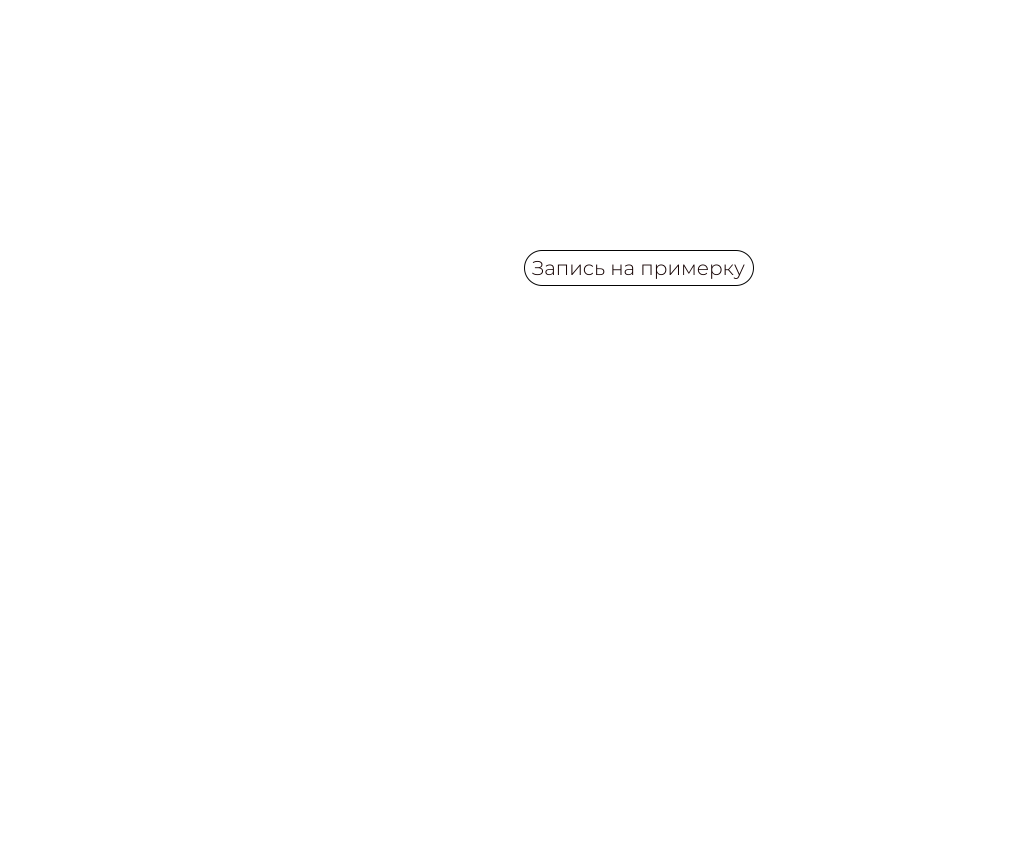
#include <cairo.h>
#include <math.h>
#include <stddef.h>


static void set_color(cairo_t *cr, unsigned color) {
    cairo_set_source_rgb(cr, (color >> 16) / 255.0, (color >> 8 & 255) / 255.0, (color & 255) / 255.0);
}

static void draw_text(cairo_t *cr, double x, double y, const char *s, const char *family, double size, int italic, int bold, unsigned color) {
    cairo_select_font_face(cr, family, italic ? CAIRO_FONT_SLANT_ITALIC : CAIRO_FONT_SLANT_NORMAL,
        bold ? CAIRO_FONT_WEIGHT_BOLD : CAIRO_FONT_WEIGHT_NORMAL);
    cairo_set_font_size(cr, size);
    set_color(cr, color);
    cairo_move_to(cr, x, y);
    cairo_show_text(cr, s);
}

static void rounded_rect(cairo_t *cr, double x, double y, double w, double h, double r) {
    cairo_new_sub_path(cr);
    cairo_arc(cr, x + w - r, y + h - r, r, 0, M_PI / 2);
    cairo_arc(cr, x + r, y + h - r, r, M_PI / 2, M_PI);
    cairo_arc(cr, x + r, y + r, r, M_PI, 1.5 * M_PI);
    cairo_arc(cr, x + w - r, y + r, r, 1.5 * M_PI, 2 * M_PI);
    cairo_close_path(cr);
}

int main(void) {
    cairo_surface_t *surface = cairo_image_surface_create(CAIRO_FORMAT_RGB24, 1010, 868);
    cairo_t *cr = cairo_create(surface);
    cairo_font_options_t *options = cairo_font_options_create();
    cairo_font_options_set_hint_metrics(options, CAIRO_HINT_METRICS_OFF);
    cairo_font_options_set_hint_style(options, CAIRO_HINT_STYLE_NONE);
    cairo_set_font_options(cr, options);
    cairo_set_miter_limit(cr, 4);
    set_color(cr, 0xFFFFFF);
    cairo_paint(cr);
    rounded_rect(cr, 524.5, 250.5, 229, 35, 17.5);
    set_color(cr, 0x030303);
    cairo_set_line_width(cr, 1);
    cairo_stroke(cr);
    draw_text(cr, 532, 275, "Запись на примерку", "Montserrat Light", 20, 0, 0, 0x140101);
    cairo_surface_write_to_png(surface, "output.png");
    cairo_font_options_destroy(options);
    cairo_destroy(cr);
    cairo_surface_destroy(surface);
    return 0;
}
